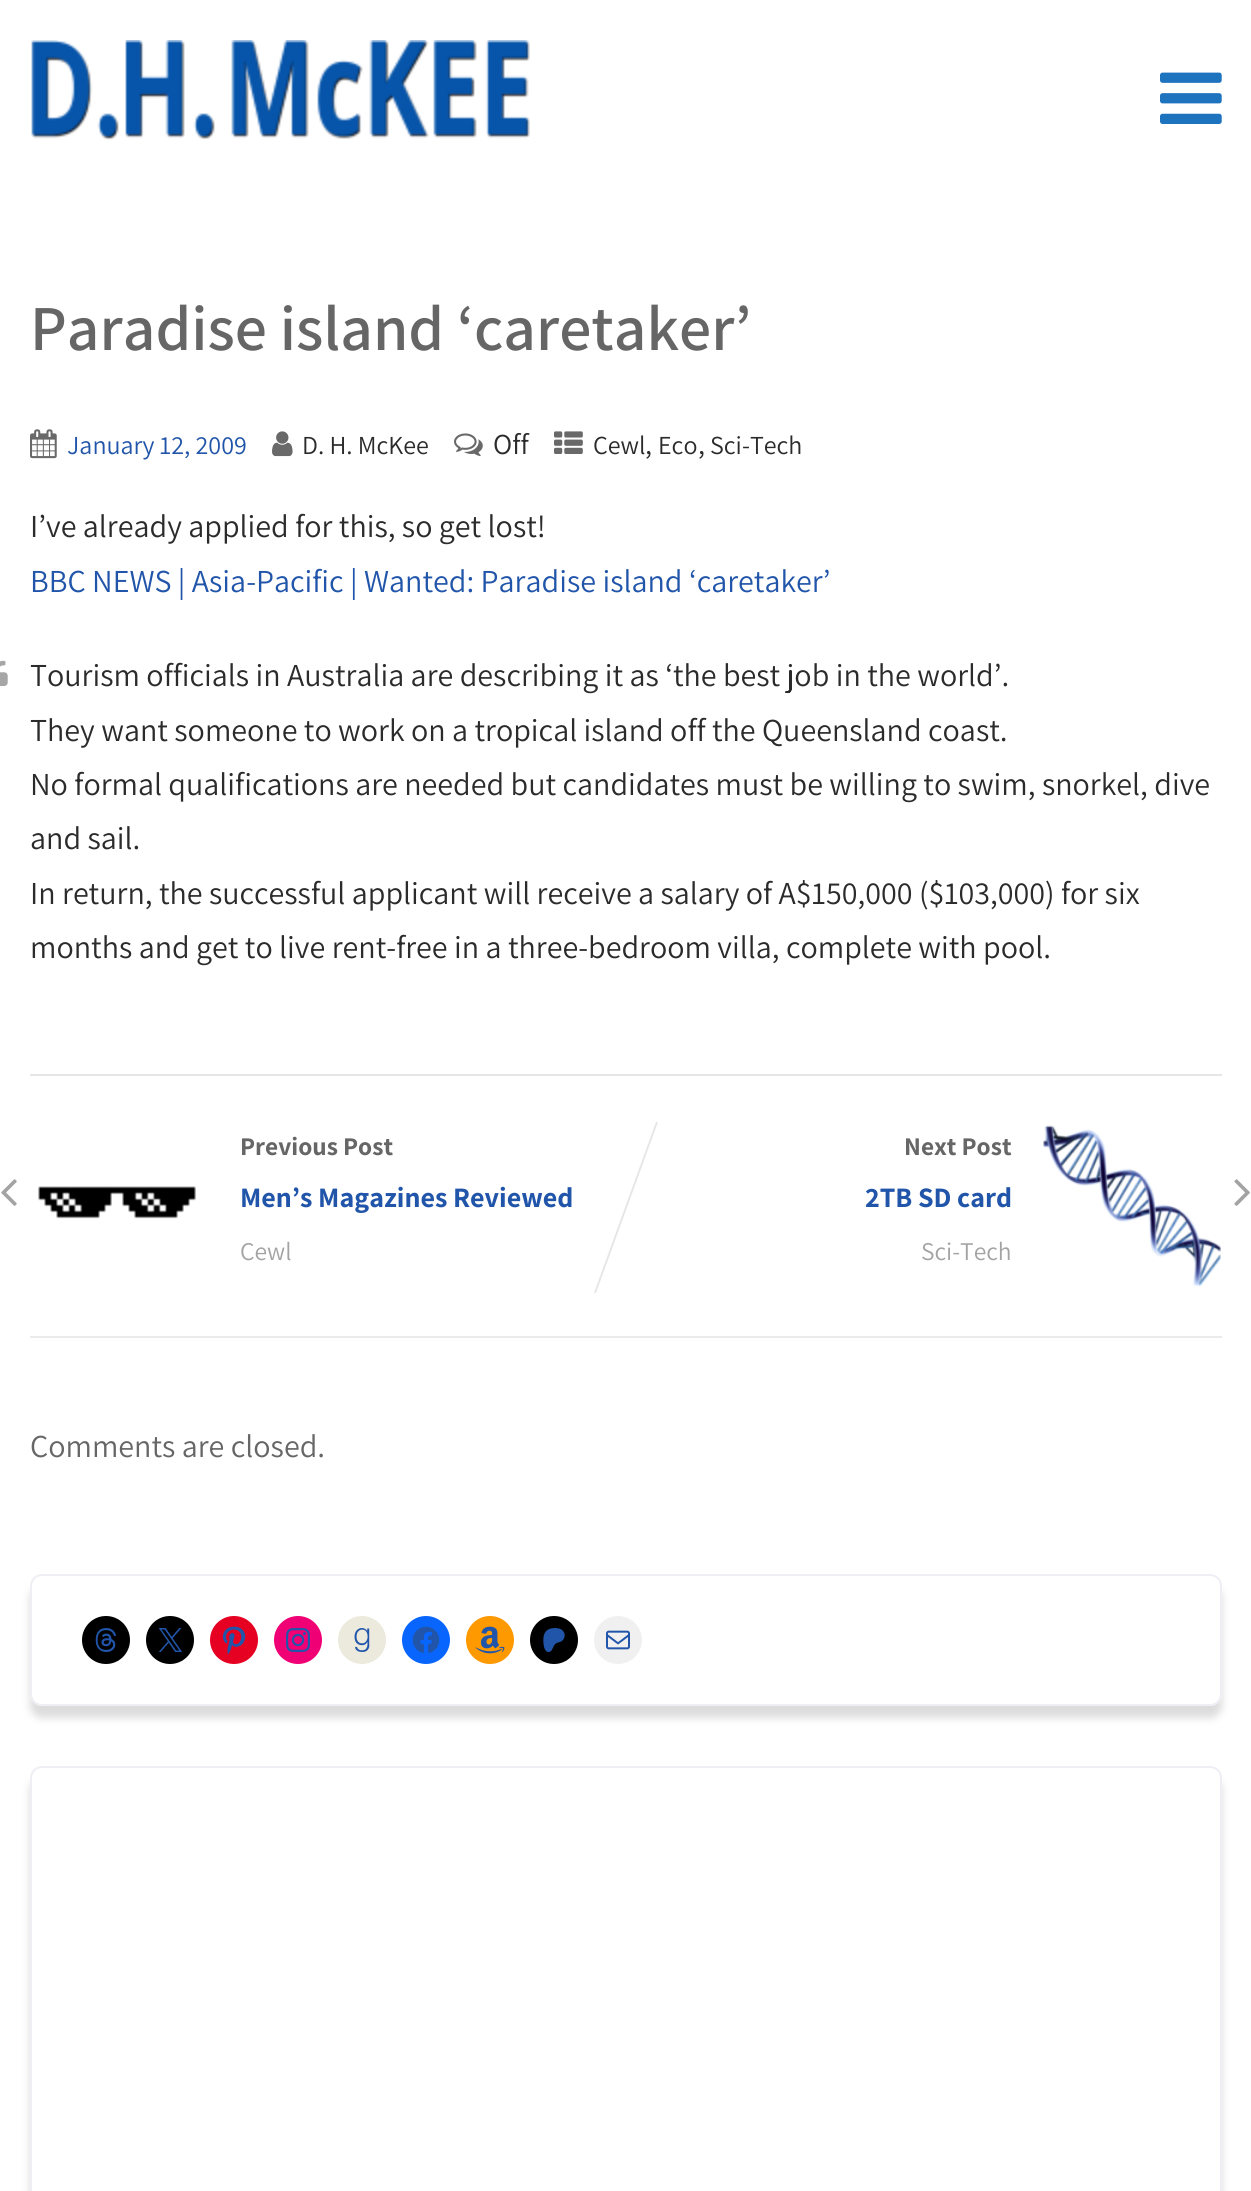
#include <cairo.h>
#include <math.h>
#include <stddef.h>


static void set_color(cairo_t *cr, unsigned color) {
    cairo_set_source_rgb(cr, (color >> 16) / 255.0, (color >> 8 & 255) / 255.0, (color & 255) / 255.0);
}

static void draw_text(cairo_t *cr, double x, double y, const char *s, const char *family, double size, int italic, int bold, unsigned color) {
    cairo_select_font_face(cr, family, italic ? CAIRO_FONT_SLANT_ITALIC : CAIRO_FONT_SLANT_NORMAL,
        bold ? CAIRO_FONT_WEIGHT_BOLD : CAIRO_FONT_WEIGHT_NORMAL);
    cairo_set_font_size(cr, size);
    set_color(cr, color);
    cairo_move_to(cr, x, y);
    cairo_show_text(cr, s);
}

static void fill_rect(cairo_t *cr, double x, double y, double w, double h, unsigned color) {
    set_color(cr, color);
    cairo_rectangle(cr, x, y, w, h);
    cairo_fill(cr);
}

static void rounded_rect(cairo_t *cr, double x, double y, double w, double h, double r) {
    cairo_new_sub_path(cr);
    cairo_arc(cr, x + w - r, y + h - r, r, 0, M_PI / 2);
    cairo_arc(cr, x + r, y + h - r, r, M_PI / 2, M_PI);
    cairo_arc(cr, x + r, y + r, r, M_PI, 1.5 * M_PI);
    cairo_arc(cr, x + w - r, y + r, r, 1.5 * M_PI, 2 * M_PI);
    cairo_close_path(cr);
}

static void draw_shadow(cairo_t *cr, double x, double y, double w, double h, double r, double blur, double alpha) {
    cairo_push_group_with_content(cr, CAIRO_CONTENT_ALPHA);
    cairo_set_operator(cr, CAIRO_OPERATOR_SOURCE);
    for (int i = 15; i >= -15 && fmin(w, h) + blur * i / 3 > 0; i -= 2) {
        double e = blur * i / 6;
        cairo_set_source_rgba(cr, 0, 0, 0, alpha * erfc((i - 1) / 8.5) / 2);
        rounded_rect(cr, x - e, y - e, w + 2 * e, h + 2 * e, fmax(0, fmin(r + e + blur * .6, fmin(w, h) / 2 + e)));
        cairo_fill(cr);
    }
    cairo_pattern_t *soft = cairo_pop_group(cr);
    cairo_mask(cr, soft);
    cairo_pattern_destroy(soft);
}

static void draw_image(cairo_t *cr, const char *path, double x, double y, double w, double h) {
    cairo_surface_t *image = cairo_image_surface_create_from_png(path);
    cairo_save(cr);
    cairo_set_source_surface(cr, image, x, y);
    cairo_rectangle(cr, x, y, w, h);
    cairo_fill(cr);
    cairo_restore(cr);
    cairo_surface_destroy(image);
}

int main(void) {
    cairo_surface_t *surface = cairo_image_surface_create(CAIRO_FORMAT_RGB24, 1251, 2191);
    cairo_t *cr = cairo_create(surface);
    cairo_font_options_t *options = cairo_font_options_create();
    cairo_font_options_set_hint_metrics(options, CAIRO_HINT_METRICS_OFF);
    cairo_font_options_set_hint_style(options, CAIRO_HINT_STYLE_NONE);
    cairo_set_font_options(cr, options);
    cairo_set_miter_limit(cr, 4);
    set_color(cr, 0xFFFFFF);
    cairo_paint(cr);
    draw_image(cr, "assets/img1.png", 31, 40, 499, 100);
    draw_image(cr, "assets/img2.png", 1160, 72, 62, 52);
    draw_text(cr, 30, 350, "Paradise island ‘caretaker’", "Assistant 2 ExtraLight", 64, 0, 0, 0x666666);
    draw_image(cr, "assets/img3.png", 30, 429, 27, 30);
    draw_text(cr, 67, 454, "January 12, 2009", "Assistant ExtraLight", 26, 0, 0, 0x2155AA);
    draw_image(cr, "assets/img4.png", 272, 431, 21, 26);
    draw_text(cr, 302, 454, "D. H. McKee", "Assistant ExtraLight", 26, 0, 0, 0x2B2B2B);
    draw_image(cr, "assets/img5.png", 454, 433, 29, 23);
    draw_text(cr, 493, 454, "Off", "Assistant ExtraLight", 29, 0, 0, 0x2B2B2B);
    draw_image(cr, "assets/img6.png", 554, 431, 29, 23);
    draw_text(cr, 593, 454, "Cewl", "Assistant ExtraLight", 26, 0, 0, 0x2B2B2B);
    draw_text(cr, 645, 454, ",", "Assistant ExtraLight", 29, 0, 0, 0x2B2B2B);
    draw_text(cr, 658, 454, "Eco", "Assistant ExtraLight", 26, 0, 0, 0x2B2B2B);
    draw_text(cr, 698, 454, ",", "Assistant ExtraLight", 29, 0, 0, 0x2B2B2B);
    draw_text(cr, 710, 454, "Sci-Tech", "Assistant ExtraLight", 26, 0, 0, 0x2B2B2B);
    draw_text(cr, 30, 537, "I’ve already applied for this, so get lost!", "Assistant ExtraLight", 32, 0, 0, 0x2B2B2B);
    draw_text(cr, 30, 592, "BBC NEWS | Asia-Pacific | Wanted: Paradise island ‘caretaker’", "Assistant ExtraLight", 32, 0, 0, 0x2155AA);
    draw_image(cr, "assets/img7.png", 0, 660, 8, 26);
    draw_text(cr, 30, 686, "Tourism officials in Australia are describing it as ‘the best job in the world’.", "Assistant ExtraLight", 32, 0, 0, 0x2B2B2B);
    draw_text(cr, 30, 741, "They want someone to work on a tropical island off the Queensland coast.", "Assistant ExtraLight", 32, 0, 0, 0x2B2B2B);
    draw_text(cr, 30, 795, "No formal qualifications are needed but candidates must be willing to swim, snorkel, dive", "Assistant ExtraLight", 32, 0, 0, 0x2B2B2B);
    draw_text(cr, 30, 849, "and sail.", "Assistant ExtraLight", 32, 0, 0, 0x2B2B2B);
    draw_text(cr, 30, 904, "In return, the successful applicant will receive a salary of A$150,000 ($103,000) for six", "Assistant ExtraLight", 32, 0, 0, 0x2B2B2B);
    draw_text(cr, 30, 958, "months and get to live rent-free in a three-bedroom villa, complete with pool.", "Assistant ExtraLight", 32, 0, 0, 0x2B2B2B);
    fill_rect(cr, 30, 1074, 1192, 2, 0xE6E6E6);
    fill_rect(cr, 30, 1336, 1192, 2, 0xEBEBEB);
    draw_text(cr, 240, 1155, "Previous Post", "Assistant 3 ExtraLight", 25.5, 0, 0, 0x666666);
    draw_image(cr, "assets/img8.png", 1, 1179, 16, 27);
    draw_image(cr, "assets/img9.png", 38, 1186, 158, 33);
    draw_text(cr, 240, 1207, "Men’s Magazines Reviewed", "Assistant 3 ExtraLight", 28.2, 0, 0, 0x2155AA);
    draw_text(cr, 240, 1260, "Cewl", "Assistant ExtraLight", 25.5, 0, 0, 0xA3A3A3);
    set_color(cr, 0xE6E6E6);
    cairo_new_path(cr);
    cairo_move_to(cr, 656, 1122);
    cairo_line_to(cr, 658, 1122);
    cairo_line_to(cr, 596, 1293);
    cairo_line_to(cr, 594, 1293);
    cairo_close_path(cr);
    cairo_fill(cr);
    draw_text(cr, 904, 1155, "Next Post", "Assistant 3 ExtraLight", 25.5, 0, 0, 0x666666);
    draw_image(cr, "assets/img10.png", 1043, 1125, 178, 162);
    draw_text(cr, 865, 1207, "2TB SD card", "Assistant 3 ExtraLight", 28.2, 0, 0, 0x2155AA);
    draw_image(cr, "assets/img11.png", 1234, 1179, 16, 27);
    draw_text(cr, 921, 1260, "Sci-Tech", "Assistant ExtraLight", 25.5, 0, 0, 0xA3A3A3);
    draw_text(cr, 30, 1457, "Comments are closed.", "Assistant ExtraLight", 32, 0, 0, 0x666666);
    cairo_save(cr);
    cairo_set_fill_rule(cr, CAIRO_FILL_RULE_EVEN_ODD);
    cairo_new_path(cr);
    cairo_move_to(cr, 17, 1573);
    cairo_line_to(cr, 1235, 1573);
    cairo_line_to(cr, 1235, 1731);
    cairo_line_to(cr, 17, 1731);
    cairo_close_path(cr);
    cairo_move_to(cr, 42, 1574);
    cairo_line_to(cr, 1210, 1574);
    cairo_curve_to(cr, 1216.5, 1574, 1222, 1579.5, 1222, 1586);
    cairo_line_to(cr, 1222, 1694);
    cairo_curve_to(cr, 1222, 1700.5, 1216.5, 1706, 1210, 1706);
    cairo_line_to(cr, 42, 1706);
    cairo_curve_to(cr, 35.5, 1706, 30, 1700.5, 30, 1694);
    cairo_line_to(cr, 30, 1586);
    cairo_curve_to(cr, 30, 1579.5, 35.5, 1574, 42, 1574);
    cairo_close_path(cr);
    cairo_clip(cr);
    set_color(cr, 0xDCDCDC);
    draw_shadow(cr, 30, 1586, 1192, 132, 12, 4, 1);
    cairo_restore(cr);
    rounded_rect(cr, 31, 1575, 1190, 130, 11);
    set_color(cr, 0xEEEFF5);
    cairo_stroke(cr);
    set_color(cr, 0x000000);
    cairo_arc(cr, 106, 1640, 24, 0, 2 * M_PI);
    cairo_fill(cr);
    draw_image(cr, "assets/img12.png", 95, 1628, 21, 24);
    cairo_arc(cr, 170, 1640, 24, 0, 2 * M_PI);
    cairo_fill(cr);
    draw_image(cr, "assets/img13.png", 158, 1628, 24, 24);
    set_color(cr, 0xE60122);
    cairo_arc(cr, 234, 1640, 24, 0, 2 * M_PI);
    cairo_fill(cr);
    draw_image(cr, "assets/img14.png", 222, 1626, 24, 29);
    set_color(cr, 0xF00075);
    cairo_arc(cr, 298, 1640, 24, 0, 2 * M_PI);
    cairo_fill(cr);
    draw_image(cr, "assets/img15.png", 286, 1628, 24, 24);
    set_color(cr, 0xECEADD);
    cairo_arc(cr, 362, 1640, 24, 0, 2 * M_PI);
    cairo_fill(cr);
    draw_image(cr, "assets/img16.png", 354, 1628, 16, 24);
    set_color(cr, 0x0866FF);
    cairo_arc(cr, 426, 1640, 24, 0, 2 * M_PI);
    cairo_fill(cr);
    draw_image(cr, "assets/img17.png", 412, 1626, 28, 28);
    set_color(cr, 0xFF9900);
    cairo_arc(cr, 490, 1640, 24, 0, 2 * M_PI);
    cairo_fill(cr);
    draw_image(cr, "assets/img18.png", 475, 1626, 30, 28);
    set_color(cr, 0x000000);
    cairo_arc(cr, 554, 1640, 24, 0, 2 * M_PI);
    cairo_fill(cr);
    draw_image(cr, "assets/img19.png", 543, 1628, 22, 24);
    set_color(cr, 0xF0F0F0);
    cairo_arc(cr, 618, 1640, 24, 0, 2 * M_PI);
    cairo_fill(cr);
    draw_image(cr, "assets/img20.png", 606, 1630, 24, 20);
    cairo_save(cr);
    cairo_set_fill_rule(cr, CAIRO_FILL_RULE_EVEN_ODD);
    cairo_new_path(cr);
    cairo_move_to(cr, 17, 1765);
    cairo_line_to(cr, 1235, 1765);
    cairo_line_to(cr, 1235, 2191);
    cairo_line_to(cr, 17, 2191);
    cairo_close_path(cr);
    cairo_move_to(cr, 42, 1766);
    cairo_line_to(cr, 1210, 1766);
    cairo_curve_to(cr, 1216.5, 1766, 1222, 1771.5, 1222, 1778);
    cairo_line_to(cr, 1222, 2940);
    cairo_curve_to(cr, 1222, 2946.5, 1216.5, 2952, 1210, 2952);
    cairo_line_to(cr, 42, 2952);
    cairo_curve_to(cr, 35.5, 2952, 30, 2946.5, 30, 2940);
    cairo_line_to(cr, 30, 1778);
    cairo_curve_to(cr, 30, 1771.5, 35.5, 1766, 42, 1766);
    cairo_close_path(cr);
    cairo_clip(cr);
    set_color(cr, 0xDCDCDC);
    draw_shadow(cr, 30, 1778, 1192, 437, 12, 4, 1);
    cairo_restore(cr);
    rounded_rect(cr, 31, 1767, 1190, 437, 11);
    set_color(cr, 0xEEEFF5);
    cairo_stroke(cr);
    cairo_surface_write_to_png(surface, "output.png");
    cairo_font_options_destroy(options);
    cairo_destroy(cr);
    cairo_surface_destroy(surface);
    return 0;
}
